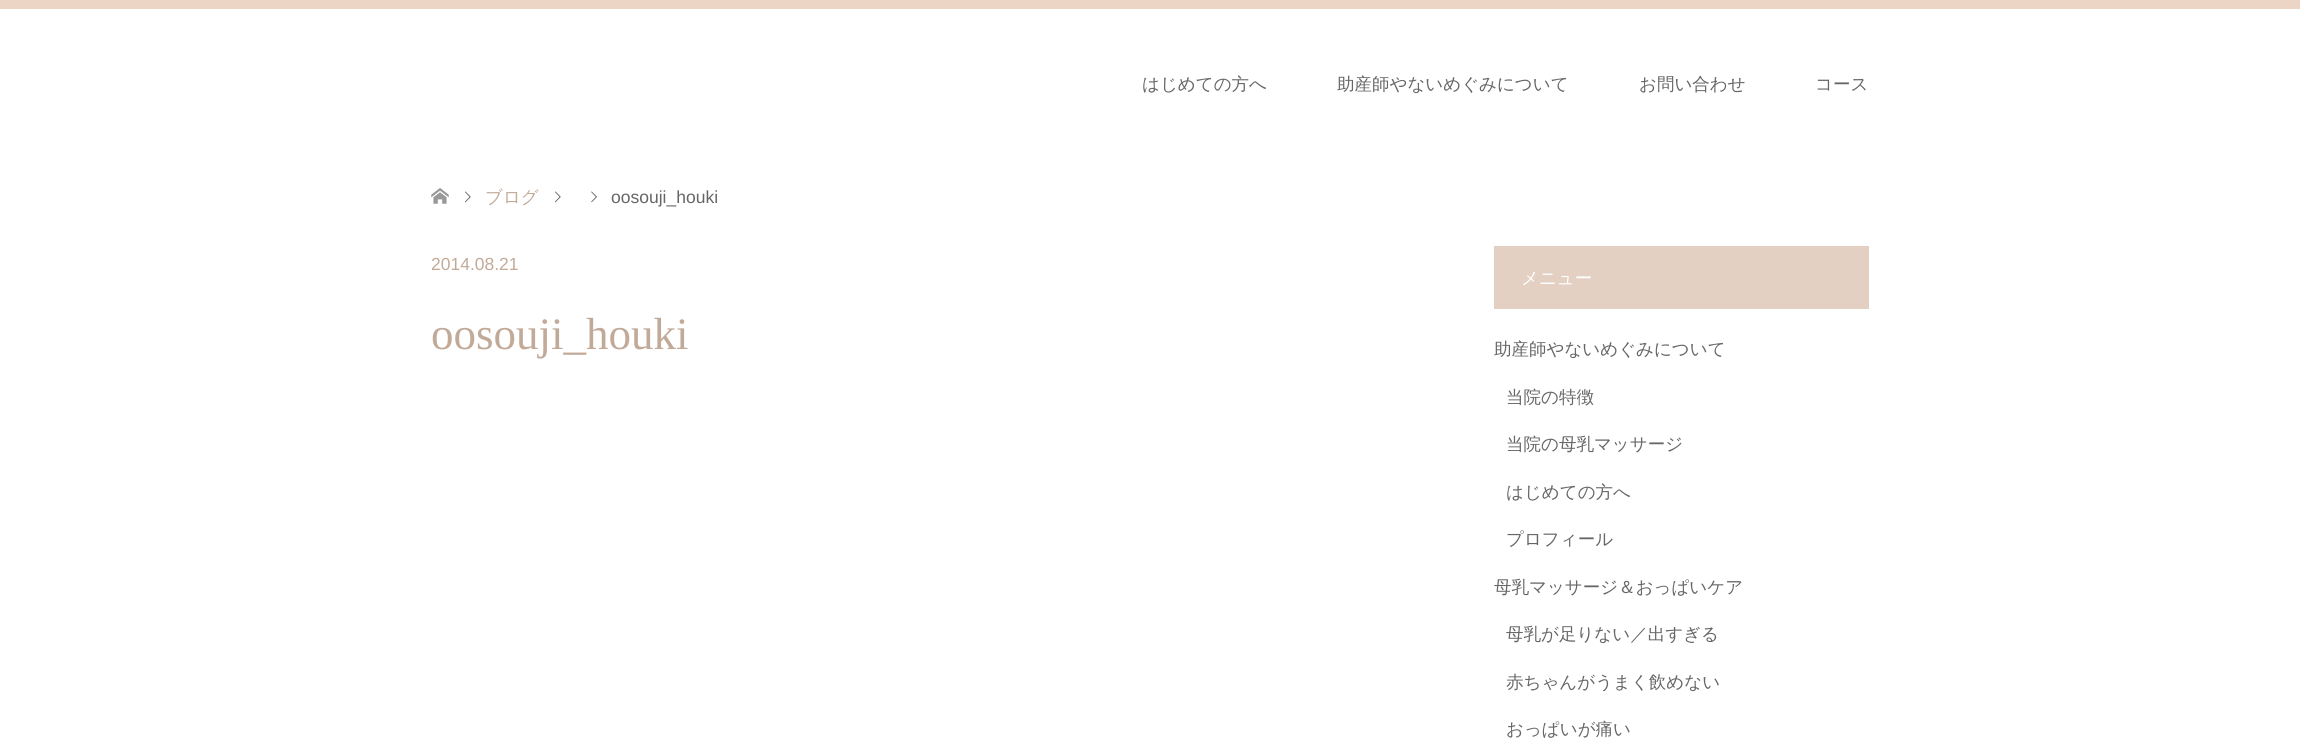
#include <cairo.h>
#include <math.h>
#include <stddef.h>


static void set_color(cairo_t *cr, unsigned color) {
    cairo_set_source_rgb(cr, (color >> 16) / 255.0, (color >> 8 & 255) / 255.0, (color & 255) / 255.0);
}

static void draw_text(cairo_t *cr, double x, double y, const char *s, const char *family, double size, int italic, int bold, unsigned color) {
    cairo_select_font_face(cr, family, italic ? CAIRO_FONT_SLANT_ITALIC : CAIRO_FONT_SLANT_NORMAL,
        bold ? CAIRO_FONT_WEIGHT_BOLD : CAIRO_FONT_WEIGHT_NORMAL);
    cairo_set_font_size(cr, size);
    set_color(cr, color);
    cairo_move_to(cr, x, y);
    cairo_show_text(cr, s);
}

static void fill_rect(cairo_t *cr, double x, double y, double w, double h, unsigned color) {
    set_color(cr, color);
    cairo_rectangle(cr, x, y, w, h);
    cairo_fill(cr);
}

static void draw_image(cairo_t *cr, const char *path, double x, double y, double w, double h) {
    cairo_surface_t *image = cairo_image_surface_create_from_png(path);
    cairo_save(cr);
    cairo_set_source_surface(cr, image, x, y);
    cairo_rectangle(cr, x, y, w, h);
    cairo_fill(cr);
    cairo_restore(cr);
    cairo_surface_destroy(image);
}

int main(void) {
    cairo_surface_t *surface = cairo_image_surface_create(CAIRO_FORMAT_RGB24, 2300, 742);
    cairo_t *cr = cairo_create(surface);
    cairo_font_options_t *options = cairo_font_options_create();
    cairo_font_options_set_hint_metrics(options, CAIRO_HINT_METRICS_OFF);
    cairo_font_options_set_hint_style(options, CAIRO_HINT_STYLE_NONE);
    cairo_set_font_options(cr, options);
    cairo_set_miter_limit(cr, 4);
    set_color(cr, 0xFFFFFF);
    cairo_paint(cr);
    fill_rect(cr, 0, 0, 2300, 9, 0xEDD5C5);
    draw_text(cr, 1142, 90, "はじめての方へ", "WenQuanYi Zen Hei Medium", 17.5, 0, 0, 0x666666);
    draw_text(cr, 1337, 90, "助産師やないめぐみについて", "WenQuanYi Zen Hei Medium", 17.5, 0, 0, 0x666666);
    draw_text(cr, 1639, 90, "お問い合わせ", "WenQuanYi Zen Hei Medium", 17.5, 0, 0, 0x666666);
    draw_text(cr, 1815, 90, "コース", "WenQuanYi Zen Hei Medium", 17.5, 0, 0, 0x666666);
    draw_image(cr, "assets/img1.png", 431, 188, 18, 16);
    draw_image(cr, "assets/img2.png", 465, 191, 6, 12);
    draw_text(cr, 485, 203, "ブログ", "WenQuanYi Zen Hei Medium", 17.5, 0, 0, 0xC2AA99);
    draw_image(cr, "assets/img2.png", 555, 191, 6, 12);
    draw_image(cr, "assets/img3.png", 591, 191, 6, 12);
    draw_text(cr, 611, 203, "oosouji_houki", "Liberation Sans", 17.5, 0, 0, 0x666666);
    draw_text(cr, 431, 270, "2014.08.21", "Liberation Sans", 17.5, 0, 0, 0xC2AA99);
    draw_text(cr, 431, 349, "oosouji_houki", "Liberation Serif", 45, 0, 0, 0xC2AA99);
    fill_rect(cr, 1494, 246, 375, 63, 0xE3D0C3);
    draw_text(cr, 1521, 284, "メニュー", "WenQuanYi Zen Hei Medium", 17.5, 0, 0, 0xFFFFFF);
    draw_text(cr, 1494, 355, "助産師やないめぐみについて", "WenQuanYi Zen Hei Medium", 17.5, 0, 0, 0x666666);
    draw_text(cr, 1506, 403, "当院の特徴", "WenQuanYi Zen Hei Medium", 17.5, 0, 0, 0x666666);
    draw_text(cr, 1506, 450, "当院の母乳マッサージ", "WenQuanYi Zen Hei Medium", 17.5, 0, 0, 0x666666);
    draw_text(cr, 1506, 498, "はじめての方へ", "WenQuanYi Zen Hei Medium", 17.5, 0, 0, 0x666666);
    draw_text(cr, 1506, 545, "プロフィール", "WenQuanYi Zen Hei Medium", 17.5, 0, 0, 0x666666);
    draw_text(cr, 1494, 593, "母乳マッサージ＆おっぱいケア", "WenQuanYi Zen Hei Medium", 17.5, 0, 0, 0x666666);
    draw_text(cr, 1506, 640, "母乳が足りない／出すぎる", "WenQuanYi Zen Hei Medium", 17.5, 0, 0, 0x666666);
    draw_text(cr, 1506, 688, "赤ちゃんがうまく飲めない", "WenQuanYi Zen Hei Medium", 17.5, 0, 0, 0x666666);
    draw_text(cr, 1506, 735, "おっぱいが痛い", "WenQuanYi Zen Hei Medium", 17.5, 0, 0, 0x666666);
    cairo_surface_write_to_png(surface, "output.png");
    cairo_font_options_destroy(options);
    cairo_destroy(cr);
    cairo_surface_destroy(surface);
    return 0;
}
